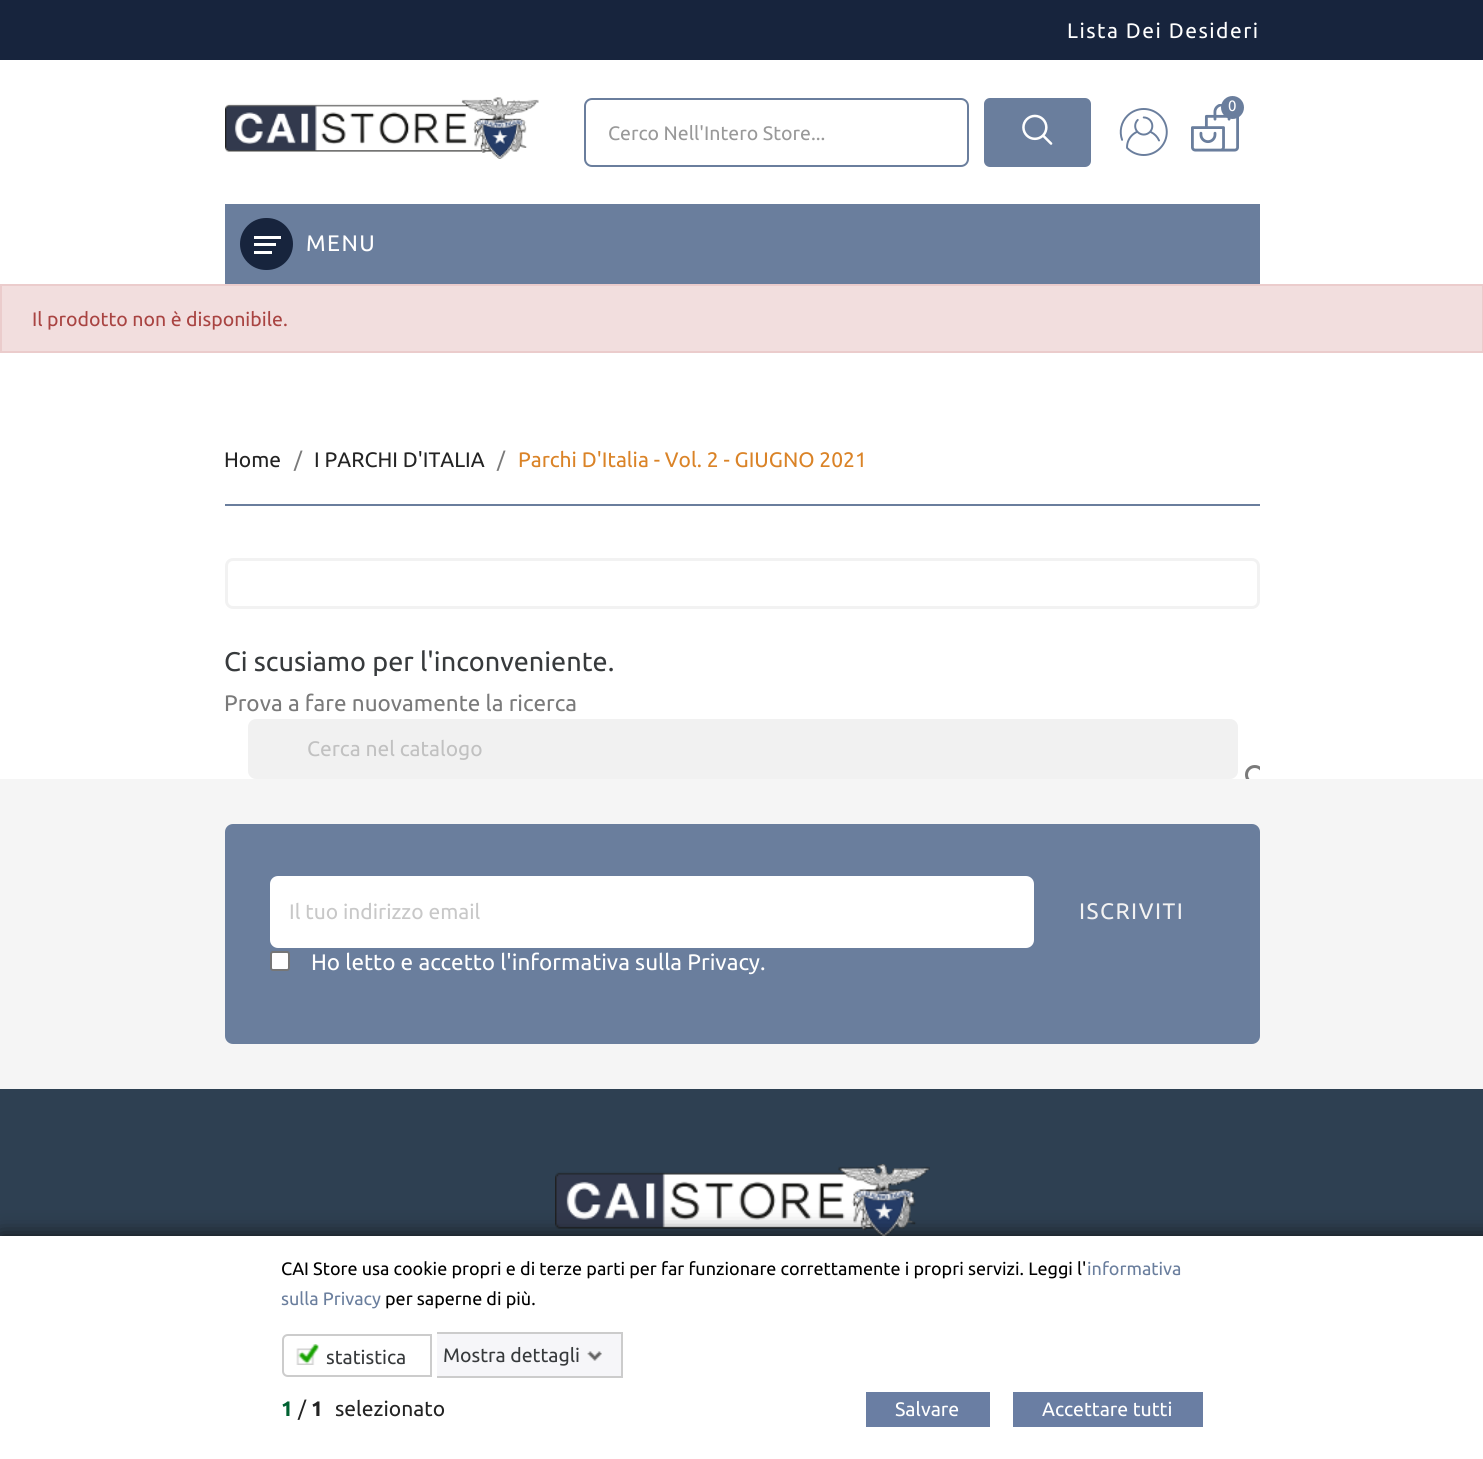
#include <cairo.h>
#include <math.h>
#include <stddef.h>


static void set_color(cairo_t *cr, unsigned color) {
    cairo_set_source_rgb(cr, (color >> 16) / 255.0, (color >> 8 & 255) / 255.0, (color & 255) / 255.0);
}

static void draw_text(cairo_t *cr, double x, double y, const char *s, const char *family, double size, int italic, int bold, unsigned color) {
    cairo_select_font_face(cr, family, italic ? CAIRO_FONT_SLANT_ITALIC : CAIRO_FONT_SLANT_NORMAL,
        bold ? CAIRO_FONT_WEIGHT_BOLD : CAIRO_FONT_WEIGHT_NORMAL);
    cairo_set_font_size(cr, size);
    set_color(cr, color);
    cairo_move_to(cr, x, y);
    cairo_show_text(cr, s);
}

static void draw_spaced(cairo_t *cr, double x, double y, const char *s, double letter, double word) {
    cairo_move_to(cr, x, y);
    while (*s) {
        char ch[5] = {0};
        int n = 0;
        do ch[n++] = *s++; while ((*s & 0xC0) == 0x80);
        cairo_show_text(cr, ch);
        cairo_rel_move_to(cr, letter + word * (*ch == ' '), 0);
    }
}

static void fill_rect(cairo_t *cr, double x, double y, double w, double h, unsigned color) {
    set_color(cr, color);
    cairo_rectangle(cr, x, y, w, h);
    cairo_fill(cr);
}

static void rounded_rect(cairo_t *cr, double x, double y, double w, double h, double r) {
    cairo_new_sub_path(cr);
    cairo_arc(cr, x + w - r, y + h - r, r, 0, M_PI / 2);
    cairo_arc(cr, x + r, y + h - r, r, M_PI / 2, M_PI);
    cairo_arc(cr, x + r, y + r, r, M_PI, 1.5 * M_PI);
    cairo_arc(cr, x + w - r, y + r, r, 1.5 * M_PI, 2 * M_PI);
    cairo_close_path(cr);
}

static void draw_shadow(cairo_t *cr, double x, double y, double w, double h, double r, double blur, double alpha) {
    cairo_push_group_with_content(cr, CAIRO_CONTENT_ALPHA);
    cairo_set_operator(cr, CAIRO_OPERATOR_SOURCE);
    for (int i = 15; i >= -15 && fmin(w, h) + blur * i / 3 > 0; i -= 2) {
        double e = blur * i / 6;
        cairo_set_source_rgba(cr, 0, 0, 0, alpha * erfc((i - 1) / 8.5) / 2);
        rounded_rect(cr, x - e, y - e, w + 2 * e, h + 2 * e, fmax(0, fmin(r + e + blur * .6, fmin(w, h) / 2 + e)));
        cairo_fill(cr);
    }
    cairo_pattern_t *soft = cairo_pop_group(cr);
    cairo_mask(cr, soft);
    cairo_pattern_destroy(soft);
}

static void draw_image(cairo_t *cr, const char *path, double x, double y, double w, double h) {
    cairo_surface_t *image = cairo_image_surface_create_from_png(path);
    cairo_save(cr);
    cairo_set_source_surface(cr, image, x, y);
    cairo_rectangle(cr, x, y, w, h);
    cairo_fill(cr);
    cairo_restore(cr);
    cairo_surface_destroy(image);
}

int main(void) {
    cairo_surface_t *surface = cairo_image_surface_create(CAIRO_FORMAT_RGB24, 1483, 1459);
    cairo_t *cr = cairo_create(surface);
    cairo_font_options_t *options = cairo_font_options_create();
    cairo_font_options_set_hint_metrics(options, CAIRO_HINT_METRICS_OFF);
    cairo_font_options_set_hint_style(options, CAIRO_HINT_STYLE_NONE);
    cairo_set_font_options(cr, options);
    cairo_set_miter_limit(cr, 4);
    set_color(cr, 0xFFFFFF);
    cairo_paint(cr);
    fill_rect(cr, 0, 0, 1483, 60, 0x17243D);
    cairo_select_font_face(cr, "Ubuntu", CAIRO_FONT_SLANT_NORMAL, CAIRO_FONT_WEIGHT_NORMAL);
    cairo_set_font_size(cr, 21);
    set_color(cr, 0xFFFFFF);
    draw_spaced(cr, 1067, 38, "Lista Dei Desideri", 1.5, 0);
    draw_image(cr, "assets/img1.png", 225, 97, 314, 62);
    draw_image(cr, "assets/img2.png", 1191, 104, 48, 48);
    set_color(cr, 0x6A7E9D);
    cairo_arc(cr, 1232.5, 107.5, 11.5, 0, 2 * M_PI);
    cairo_fill(cr);
    draw_text(cr, 1228, 111, "0", "Ubuntu", 15, 0, 0, 0xFFFFFF);
    draw_image(cr, "assets/img3.png", 1119, 108, 49, 48);
    rounded_rect(cr, 585, 99, 383, 67, 7);
    set_color(cr, 0x6A7E9D);
    cairo_stroke(cr);
    draw_text(cr, 608, 140, "Cerco Nell'Intero Store...", "Ubuntu", 19.5, 0, 0, 0x999999);
    set_color(cr, 0x6A7E9D);
    rounded_rect(cr, 984, 98, 107, 69, 6);
    cairo_fill(cr);
    draw_image(cr, "assets/img4.png", 1022, 114, 31, 31);
    fill_rect(cr, 225, 204, 1035, 80, 0x6A7E9D);
    set_color(cr, 0x17243D);
    rounded_rect(cr, 240, 218, 53, 52, 26);
    cairo_fill(cr);
    fill_rect(cr, 254, 236, 27, 3, 0xFFFFFF);
    fill_rect(cr, 254, 243, 22, 3, 0xFFFFFF);
    fill_rect(cr, 254, 251, 18, 3, 0xFFFFFF);
    cairo_set_font_size(cr, 22.5);
    draw_spaced(cr, 306, 251, "MENU", 1.5, 0);
    set_color(cr, 0xF2DEDE);
    cairo_rectangle(cr, 1, 285, 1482, 67);
    cairo_fill_preserve(cr);
    set_color(cr, 0xEBCCCC);
    cairo_stroke(cr);
    draw_text(cr, 32, 326, "Il prodotto non è disponibile.", "Ubuntu", 19.5, 0, 0, 0xA94442);
    fill_rect(cr, 225, 504, 1035, 2, 0x6A7E9D);
    draw_text(cr, 224, 467, "Home", "Ubuntu", 21, 0, 0, 0x232323);
    draw_text(cr, 294, 467, "/", "Ubuntu", 21, 0, 0, 0x7A7A7A);
    draw_text(cr, 314, 467, "I PARCHI D'ITALIA", "Ubuntu", 21, 0, 0, 0x232323);
    draw_text(cr, 497, 467, "/", "Ubuntu", 21, 0, 0, 0x7A7A7A);
    draw_text(cr, 518, 467, "Parchi D'Italia - Vol. 2 - GIUGNO 2021", "Ubuntu", 21, 0, 0, 0xDA8327);
    rounded_rect(cr, 226.5, 559.5, 1032, 48, 6.5);
    set_color(cr, 0xF2F2F2);
    cairo_set_line_width(cr, 3);
    cairo_stroke(cr);
    draw_text(cr, 224, 671, "Ci scusiamo per l'inconveniente.", "Ubuntu", 27, 0, 0, 0x373A3C);
    draw_text(cr, 224, 711, "Prova a fare nuovamente la ricerca", "Ubuntu", 22.5, 0, 0, 0x7A7A7A);
    set_color(cr, 0xF1F1F1);
    rounded_rect(cr, 248, 719, 990, 60, 8);
    cairo_fill(cr);
    draw_text(cr, 307, 756, "Cerca nel catalogo", "Ubuntu", 21, 0, 0, 0xC1C1C1);
    draw_image(cr, "assets/img5.png", 1245, 765, 15, 14);
    fill_rect(cr, 0, 779, 1483, 310, 0xF5F5F5);
    set_color(cr, 0x6A7E9D);
    rounded_rect(cr, 225, 824, 1035, 220, 8);
    cairo_fill(cr);
    set_color(cr, 0xFFFFFF);
    rounded_rect(cr, 270, 876, 764, 72, 8);
    cairo_fill(cr);
    draw_text(cr, 289, 919, "Il tuo indirizzo email", "Ubuntu", 21, 0, 0, 0xC8C8C8);
    cairo_set_font_size(cr, 22.5);
    set_color(cr, 0xF2F2F2);
    draw_spaced(cr, 1079, 919, "ISCRIVITI", 1.5, 0);
    set_color(cr, 0xFFFFFF);
    rounded_rect(cr, 271, 952, 18, 18, 2);
    cairo_fill_preserve(cr);
    set_color(cr, 0x767676);
    cairo_set_line_width(cr, 2);
    cairo_stroke(cr);
    draw_text(cr, 311, 970, "Ho letto e accetto l'informativa sulla Privacy.", "Ubuntu", 22.5, 0, 0, 0xFFFFFF);
    fill_rect(cr, 0, 1089, 1483, 147, 0x2E4052);
    draw_image(cr, "assets/img6.png", 555, 1164, 375, 72);
    set_color(cr, 0x121212);
    draw_shadow(cr, 0, 1236, 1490, 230, 0, 10.5, 1);
    fill_rect(cr, 0, 1236, 1483, 223, 0xFFFFFF);
    draw_text(cr, 281, 1275, "CAI Store usa cookie propri e di terze parti per far funzionare correttamente i propri servizi. Leggi l'", "Ubuntu", 18, 0, 0, 0x000000);
    draw_text(cr, 1087, 1275, "informativa", "Ubuntu", 18, 0, 0, 0x6A7E9D);
    draw_text(cr, 281, 1305, "sulla Privacy", "Ubuntu", 18, 0, 0, 0x6A7E9D);
    draw_text(cr, 385, 1305, "per saperne di più.", "Ubuntu", 18, 0, 0, 0x000000);
    cairo_new_path(cr);
    cairo_move_to(cr, 288, 1335);
    cairo_line_to(cr, 431, 1335);
    cairo_line_to(cr, 431, 1376);
    cairo_line_to(cr, 288, 1376);
    cairo_curve_to(cr, 285, 1376, 283, 1374, 283, 1371);
    cairo_line_to(cr, 283, 1340);
    cairo_curve_to(cr, 283, 1337, 285, 1335, 288, 1335);
    cairo_close_path(cr);
    set_color(cr, 0xCCCCCC);
    cairo_stroke(cr);
    draw_image(cr, "assets/img7.png", 296, 1344, 23, 21);
    draw_text(cr, 326, 1364, "statistica", "Ubuntu", 19.5, 0, 0, 0x373A3C);
    fill_rect(cr, 437, 1334, 184, 42, 0xF6F6F9);
    fill_rect(cr, 437, 1332, 186, 2, 0xCCCCCC);
    fill_rect(cr, 621, 1332, 2, 45, 0xCCCCCC);
    fill_rect(cr, 437, 1376, 186, 2, 0xCCCCCC);
    draw_text(cr, 443, 1362, "Mostra dettagli", "Ubuntu", 19.5, 0, 0, 0x373A3C);
    draw_image(cr, "assets/img8.png", 587, 1351, 15, 10);
    draw_text(cr, 281, 1416, "1", "Ubuntu", 21, 0, 1, 0x006131);
    draw_text(cr, 298, 1416, "/", "Ubuntu", 21, 0, 0, 0x232323);
    draw_text(cr, 311, 1416, "1", "Ubuntu", 21, 0, 1, 0x232323);
    draw_text(cr, 335, 1416, "selezionato", "Ubuntu", 21, 0, 0, 0x232323);
    fill_rect(cr, 866, 1392, 124, 35, 0x6A7EA3);
    draw_text(cr, 895, 1416, "Salvare", "Ubuntu", 19.5, 0, 0, 0xFFFFFF);
    fill_rect(cr, 1013, 1392, 190, 35, 0x6A7EA3);
    draw_text(cr, 1042, 1416, "Accettare tutti", "Ubuntu", 19.5, 0, 0, 0xFFFFFF);
    cairo_surface_write_to_png(surface, "output.png");
    cairo_font_options_destroy(options);
    cairo_destroy(cr);
    cairo_surface_destroy(surface);
    return 0;
}
